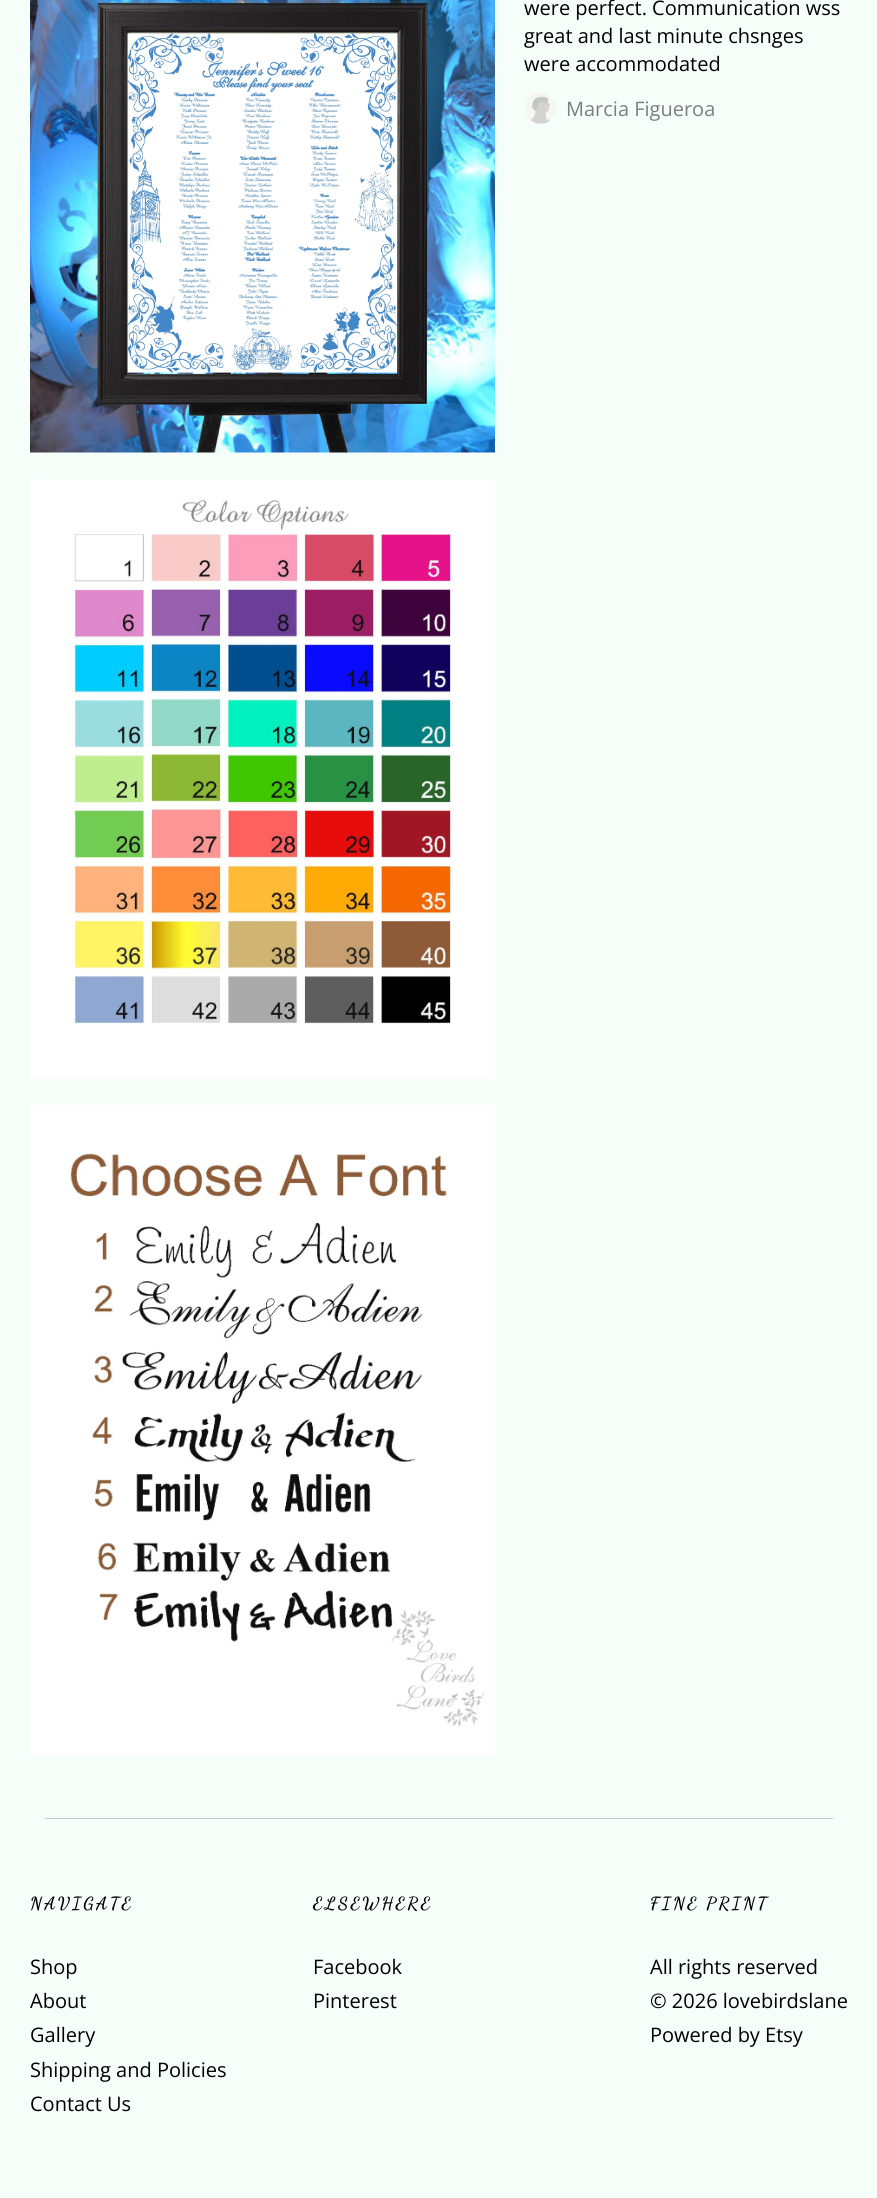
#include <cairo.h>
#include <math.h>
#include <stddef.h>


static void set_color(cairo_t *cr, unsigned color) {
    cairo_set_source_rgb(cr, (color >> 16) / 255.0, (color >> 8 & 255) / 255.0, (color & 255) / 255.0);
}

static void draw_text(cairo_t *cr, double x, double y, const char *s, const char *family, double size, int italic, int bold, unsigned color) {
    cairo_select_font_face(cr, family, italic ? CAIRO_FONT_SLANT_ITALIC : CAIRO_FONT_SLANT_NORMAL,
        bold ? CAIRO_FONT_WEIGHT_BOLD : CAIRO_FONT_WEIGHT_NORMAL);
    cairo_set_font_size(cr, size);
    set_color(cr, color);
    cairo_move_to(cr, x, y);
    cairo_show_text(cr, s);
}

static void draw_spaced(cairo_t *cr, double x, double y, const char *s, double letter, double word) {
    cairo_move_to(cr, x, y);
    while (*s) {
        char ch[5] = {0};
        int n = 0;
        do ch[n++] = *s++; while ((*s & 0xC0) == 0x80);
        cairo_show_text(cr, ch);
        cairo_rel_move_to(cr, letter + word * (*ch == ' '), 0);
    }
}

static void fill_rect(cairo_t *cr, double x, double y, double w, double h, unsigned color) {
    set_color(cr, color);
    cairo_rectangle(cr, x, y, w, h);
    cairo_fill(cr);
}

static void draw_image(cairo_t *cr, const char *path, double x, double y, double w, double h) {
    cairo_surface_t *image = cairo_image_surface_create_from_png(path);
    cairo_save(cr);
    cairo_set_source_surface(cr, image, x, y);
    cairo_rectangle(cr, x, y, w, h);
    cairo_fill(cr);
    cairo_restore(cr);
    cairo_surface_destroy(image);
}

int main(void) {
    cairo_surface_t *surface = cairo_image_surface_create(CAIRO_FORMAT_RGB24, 877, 2198);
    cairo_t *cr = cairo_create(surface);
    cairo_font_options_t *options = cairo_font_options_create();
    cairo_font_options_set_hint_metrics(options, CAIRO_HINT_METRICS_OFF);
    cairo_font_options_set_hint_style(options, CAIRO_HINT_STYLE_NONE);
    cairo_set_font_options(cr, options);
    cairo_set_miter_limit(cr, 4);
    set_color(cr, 0xF6FEFA);
    cairo_paint(cr);
    draw_image(cr, "assets/img1.png", 30, 0, 465, 453);
    draw_image(cr, "assets/img2.png", 30, 479, 465, 600);
    draw_image(cr, "assets/img3.png", 30, 1105, 465, 650);
    draw_text(cr, 524, 15, "were perfect. Communication wss", "Open Sans", 20, 0, 0, 0x000000);
    draw_text(cr, 524, 43, "great and last minute chsnges", "Open Sans", 20, 0, 0, 0x000000);
    draw_text(cr, 524, 71, "were accommodated", "Open Sans", 20, 0, 0, 0x000000);
    draw_image(cr, "assets/img4.png", 525, 93, 31, 31);
    draw_text(cr, 566, 116, "Marcia Figueroa", "Open Sans", 20, 0, 0, 0x7B7F7D);
    fill_rect(cr, 45, 1818, 788, 1, 0xC5CBC8);
    cairo_select_font_face(cr, "Dancing Script", CAIRO_FONT_SLANT_NORMAL, CAIRO_FONT_WEIGHT_BOLD);
    cairo_set_font_size(cr, 17.5);
    set_color(cr, 0x000000);
    draw_spaced(cr, 30, 1909, "NAVIGATE", 2.5, 0);
    draw_text(cr, 30, 1974, "Shop", "Open Sans", 20, 0, 0, 0x000000);
    draw_text(cr, 30, 2008, "About", "Open Sans", 20, 0, 0, 0x000000);
    draw_text(cr, 30, 2042, "Gallery", "Open Sans", 20, 0, 0, 0x000000);
    draw_text(cr, 30, 2077, "Shipping and Policies", "Open Sans", 20, 0, 0, 0x000000);
    draw_text(cr, 30, 2111, "Contact Us", "Open Sans", 20, 0, 0, 0x000000);
    cairo_select_font_face(cr, "Dancing Script", CAIRO_FONT_SLANT_NORMAL, CAIRO_FONT_WEIGHT_BOLD);
    cairo_set_font_size(cr, 17.5);
    draw_spaced(cr, 313, 1909, "ELSEWHERE", 2.5, 0);
    draw_text(cr, 313, 1974, "Facebook", "Open Sans", 20, 0, 0, 0x000000);
    draw_text(cr, 313, 2008, "Pinterest", "Open Sans", 20, 0, 0, 0x000000);
    cairo_select_font_face(cr, "Dancing Script", CAIRO_FONT_SLANT_NORMAL, CAIRO_FONT_WEIGHT_BOLD);
    cairo_set_font_size(cr, 17.5);
    draw_spaced(cr, 650, 1909, "FINE PRINT", 2.5, 0);
    draw_text(cr, 650, 1974, "All rights reserved", "Open Sans", 20, 0, 0, 0x000000);
    draw_text(cr, 650, 2008, "© 2026 lovebirdslane", "Open Sans", 20, 0, 0, 0x000000);
    draw_text(cr, 650, 2042, "Powered by Etsy", "Open Sans", 20, 0, 0, 0x000000);
    cairo_surface_write_to_png(surface, "output.png");
    cairo_font_options_destroy(options);
    cairo_destroy(cr);
    cairo_surface_destroy(surface);
    return 0;
}
